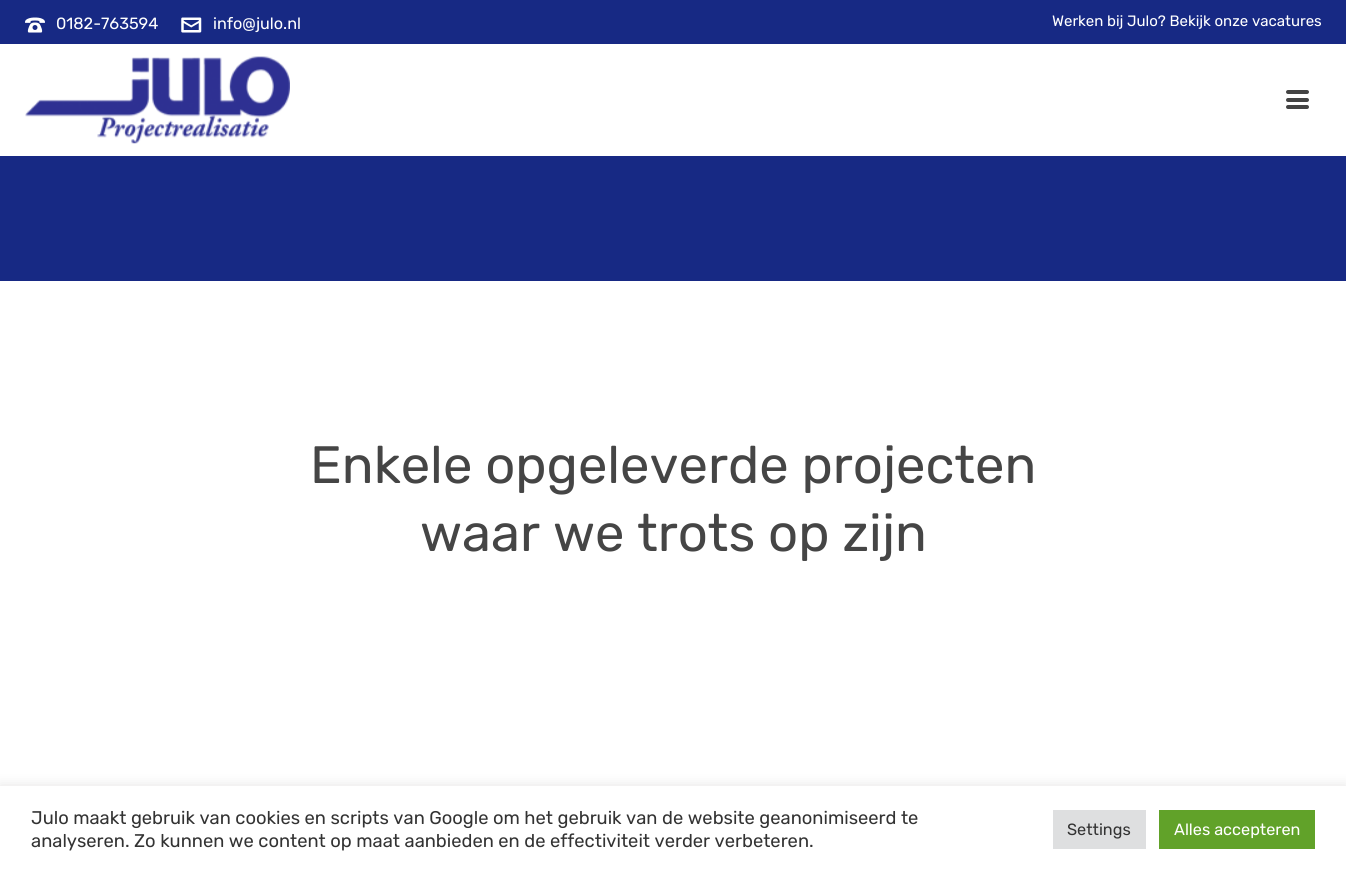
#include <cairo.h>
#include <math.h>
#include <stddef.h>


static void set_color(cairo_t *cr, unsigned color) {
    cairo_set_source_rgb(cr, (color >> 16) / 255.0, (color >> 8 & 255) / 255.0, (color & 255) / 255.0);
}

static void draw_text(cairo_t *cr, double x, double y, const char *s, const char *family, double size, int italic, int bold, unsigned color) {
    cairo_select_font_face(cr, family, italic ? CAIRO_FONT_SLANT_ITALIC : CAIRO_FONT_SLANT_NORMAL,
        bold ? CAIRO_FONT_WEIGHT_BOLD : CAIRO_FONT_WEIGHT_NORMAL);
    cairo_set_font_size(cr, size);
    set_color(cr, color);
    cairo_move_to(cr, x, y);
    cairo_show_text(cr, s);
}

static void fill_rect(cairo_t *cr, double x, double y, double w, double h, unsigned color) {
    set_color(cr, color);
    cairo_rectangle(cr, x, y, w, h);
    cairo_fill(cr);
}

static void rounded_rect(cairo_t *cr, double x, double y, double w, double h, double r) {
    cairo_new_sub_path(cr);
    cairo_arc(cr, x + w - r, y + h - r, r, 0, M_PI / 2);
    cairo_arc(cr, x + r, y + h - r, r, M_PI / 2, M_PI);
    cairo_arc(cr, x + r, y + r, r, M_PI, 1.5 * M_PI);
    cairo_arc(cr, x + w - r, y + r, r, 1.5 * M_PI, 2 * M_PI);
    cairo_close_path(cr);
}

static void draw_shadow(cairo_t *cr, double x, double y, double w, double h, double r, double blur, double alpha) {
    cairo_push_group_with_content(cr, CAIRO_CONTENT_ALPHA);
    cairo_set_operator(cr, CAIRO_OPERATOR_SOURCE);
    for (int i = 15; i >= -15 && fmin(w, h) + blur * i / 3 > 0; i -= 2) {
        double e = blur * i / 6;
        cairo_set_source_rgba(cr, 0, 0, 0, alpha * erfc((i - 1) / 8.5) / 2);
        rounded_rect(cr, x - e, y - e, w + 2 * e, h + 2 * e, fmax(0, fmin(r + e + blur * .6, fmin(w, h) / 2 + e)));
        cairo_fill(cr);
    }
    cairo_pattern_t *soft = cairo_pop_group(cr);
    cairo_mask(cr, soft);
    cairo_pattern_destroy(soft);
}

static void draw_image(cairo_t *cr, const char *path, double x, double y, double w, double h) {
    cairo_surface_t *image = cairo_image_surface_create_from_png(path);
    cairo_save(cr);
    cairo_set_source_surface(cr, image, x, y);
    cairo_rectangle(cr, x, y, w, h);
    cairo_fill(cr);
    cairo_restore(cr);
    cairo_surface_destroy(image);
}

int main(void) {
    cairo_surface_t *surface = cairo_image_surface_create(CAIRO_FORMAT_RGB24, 1346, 872);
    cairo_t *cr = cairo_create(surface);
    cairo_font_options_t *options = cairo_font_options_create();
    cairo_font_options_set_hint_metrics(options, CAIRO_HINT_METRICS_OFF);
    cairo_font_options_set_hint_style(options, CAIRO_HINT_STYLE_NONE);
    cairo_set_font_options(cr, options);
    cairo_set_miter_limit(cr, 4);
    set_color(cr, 0xFFFFFF);
    cairo_paint(cr);
    fill_rect(cr, 0, 0, 1346, 44, 0x172984);
    draw_image(cr, "assets/img1.png", 25, 17, 20, 16);
    draw_text(cr, 56, 29, "0182-763594", "Rubik", 16.25, 0, 0, 0xFFFFFF);
    draw_image(cr, "assets/img2.png", 181, 17, 21, 16);
    draw_text(cr, 213, 29, "info@julo.nl", "Rubik", 16.25, 0, 0, 0xFFFFFF);
    draw_text(cr, 1052, 26, "Werken bij Julo? Bekijk onze vacatures", "Rubik", 15, 0, 0, 0xFFFFFF);
    draw_image(cr, "assets/img3.png", 25, 56, 265, 88);
    set_color(cr, 0x444444);
    rounded_rect(cr, 1286, 90, 23, 4, 2);
    cairo_fill(cr);
    rounded_rect(cr, 1286, 98, 23, 4, 2);
    cairo_fill(cr);
    rounded_rect(cr, 1286, 105, 23, 4, 2);
    cairo_fill(cr);
    fill_rect(cr, 0, 156, 1346, 125, 0x172984);
    draw_text(cr, 310, 483, "Enkele opgeleverde projecten", "Rubik", 52.5, 0, 0, 0x454545);
    draw_text(cr, 420, 551, "waar we trots op zijn", "Rubik", 52.5, 0, 0, 0x454545);
    set_color(cr, 0xACABAB);
    draw_shadow(cr, 0, 785, 1346, 86, 0, 6, 0.3);
    fill_rect(cr, 0, 786, 1346, 86, 0xFFFFFF);
    draw_text(cr, 31, 824, "Julo maakt gebruik van cookies en scripts van Google om het gebruik van de website geanonimiseerd te", "Rubik", 18.35, 0, 0, 0x333333);
    draw_text(cr, 31, 847, "analyseren. Zo kunnen we content op maat aanbieden en de effectiviteit verder verbeteren.", "Rubik", 18.35, 0, 0, 0x333333);
    fill_rect(cr, 1053, 810, 93, 39, 0xDEDFE0);
    draw_text(cr, 1067, 835, "Settings", "Rubik", 16.25, 0, 0, 0x333333);
    fill_rect(cr, 1159, 810, 156, 39, 0x61A229);
    draw_text(cr, 1174, 835, "Alles accepteren", "Rubik", 16.25, 0, 0, 0xFFFFFF);
    cairo_surface_write_to_png(surface, "output.png");
    cairo_font_options_destroy(options);
    cairo_destroy(cr);
    cairo_surface_destroy(surface);
    return 0;
}
